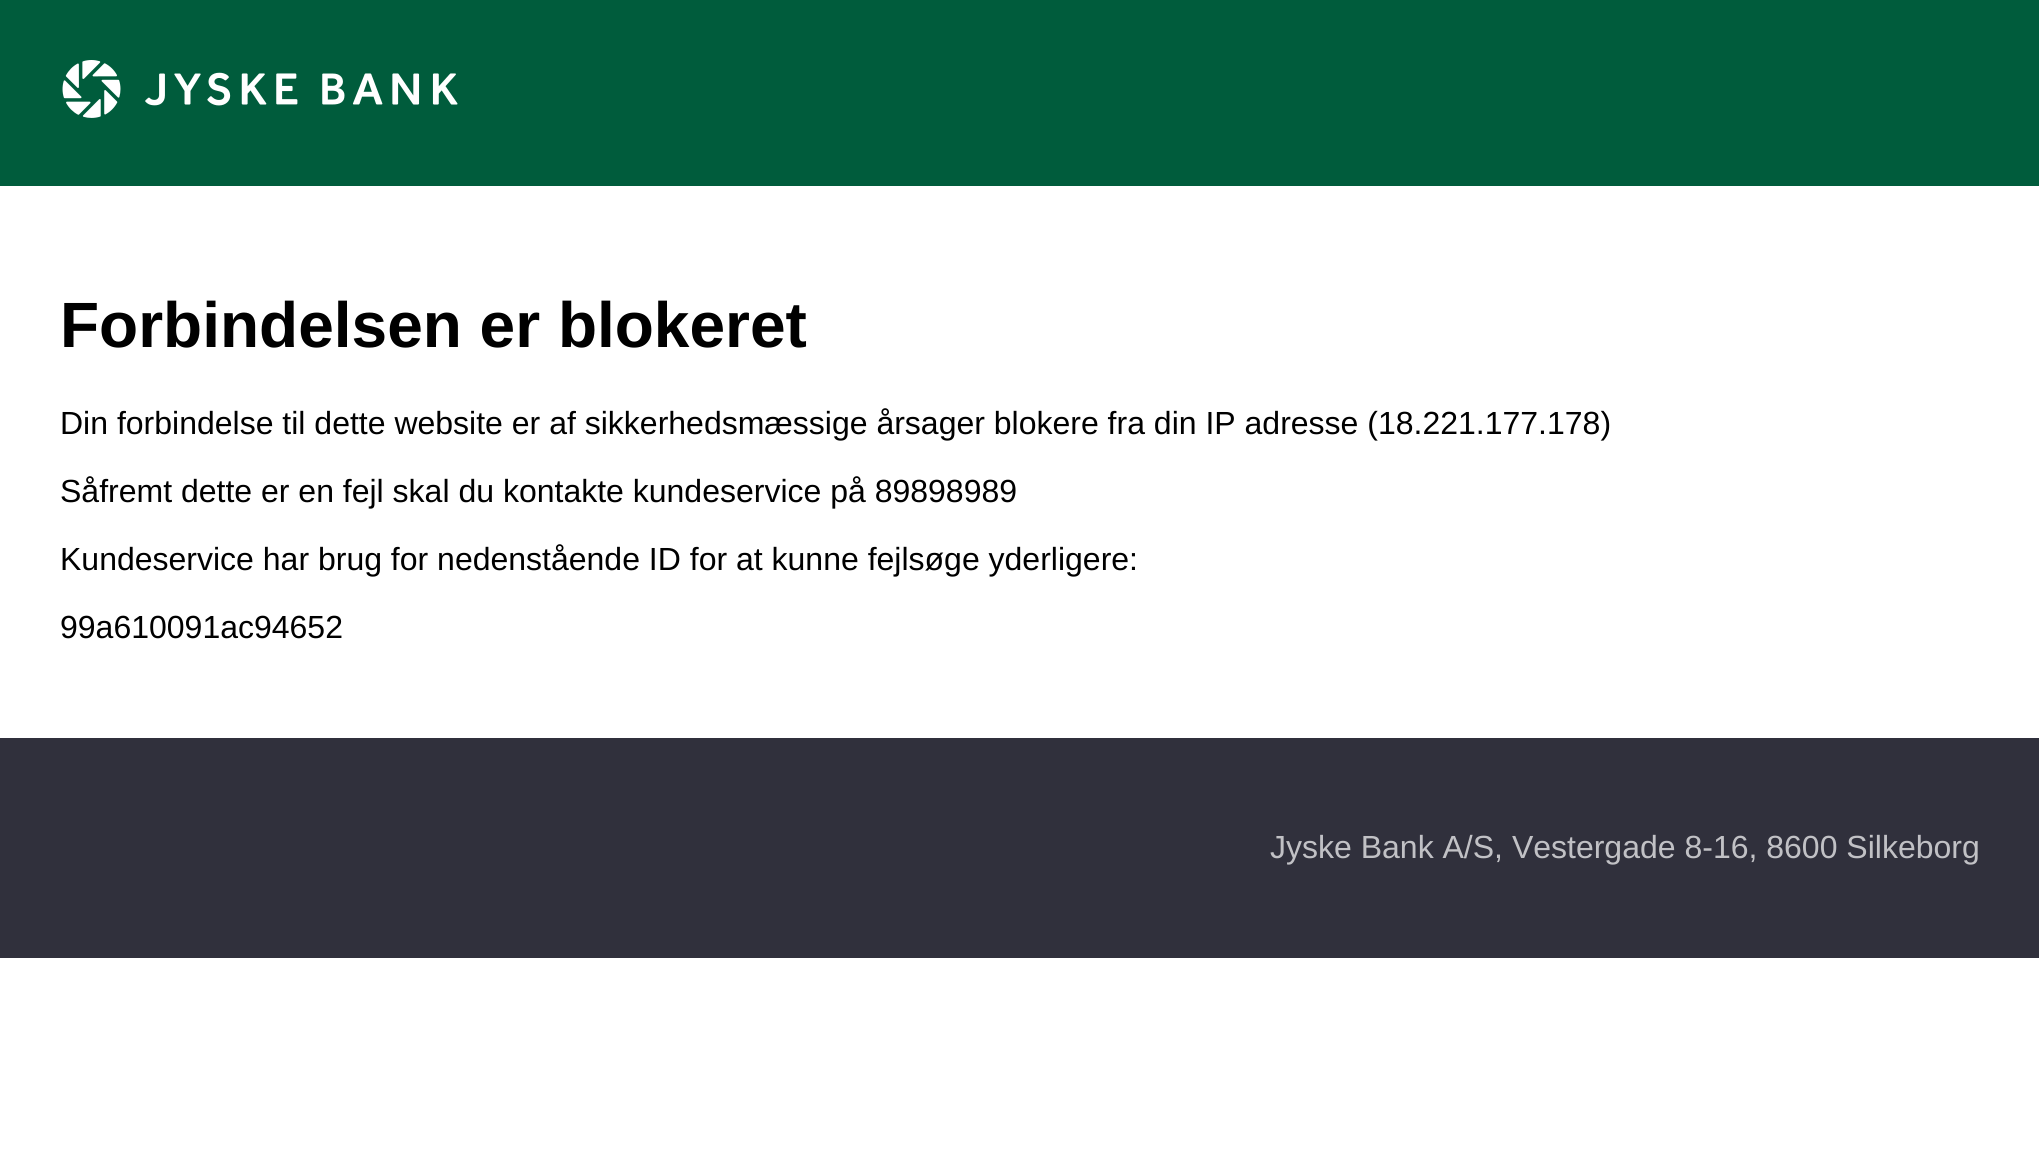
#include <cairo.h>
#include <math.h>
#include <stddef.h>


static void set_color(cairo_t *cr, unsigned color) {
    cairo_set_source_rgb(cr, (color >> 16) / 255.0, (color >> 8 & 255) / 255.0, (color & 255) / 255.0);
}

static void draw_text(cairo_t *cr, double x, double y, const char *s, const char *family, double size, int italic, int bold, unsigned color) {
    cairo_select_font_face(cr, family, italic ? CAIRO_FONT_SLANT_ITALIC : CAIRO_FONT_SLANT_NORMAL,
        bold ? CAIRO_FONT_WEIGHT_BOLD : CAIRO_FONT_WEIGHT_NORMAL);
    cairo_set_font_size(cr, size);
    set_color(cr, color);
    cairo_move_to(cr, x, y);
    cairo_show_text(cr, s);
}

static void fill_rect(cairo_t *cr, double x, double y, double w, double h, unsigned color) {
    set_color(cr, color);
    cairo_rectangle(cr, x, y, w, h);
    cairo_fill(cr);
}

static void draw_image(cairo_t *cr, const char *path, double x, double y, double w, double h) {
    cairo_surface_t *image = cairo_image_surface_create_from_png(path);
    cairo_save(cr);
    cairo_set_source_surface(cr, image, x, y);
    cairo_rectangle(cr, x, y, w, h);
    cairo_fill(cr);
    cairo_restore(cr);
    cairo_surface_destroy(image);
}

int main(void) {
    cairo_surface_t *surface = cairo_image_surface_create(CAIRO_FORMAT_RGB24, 2039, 1160);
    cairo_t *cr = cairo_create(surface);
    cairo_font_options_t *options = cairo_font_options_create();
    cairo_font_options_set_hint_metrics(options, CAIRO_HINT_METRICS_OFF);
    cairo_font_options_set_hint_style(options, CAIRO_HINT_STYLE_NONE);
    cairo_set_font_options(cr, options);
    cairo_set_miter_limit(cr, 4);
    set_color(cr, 0xFFFFFF);
    cairo_paint(cr);
    fill_rect(cr, 0, 0, 2039, 186, 0x005C3C);
    draw_image(cr, "assets/img1.png", 62, 60, 396, 58);
    draw_text(cr, 60, 347, "Forbindelsen er blokeret", "Liberation Sans", 64, 0, 1, 0x000000);
    draw_text(cr, 60, 434, "Din forbindelse til dette website er af sikkerhedsmæssige årsager blokere fra din IP adresse (18.221.177.178)", "Liberation Sans", 32, 0, 0, 0x000000);
    draw_text(cr, 60, 502, "Såfremt dette er en fejl skal du kontakte kundeservice på 89898989", "Liberation Sans", 32, 0, 0, 0x000000);
    draw_text(cr, 60, 570, "Kundeservice har brug for nedenstående ID for at kunne fejlsøge yderligere:", "Liberation Sans", 32, 0, 0, 0x000000);
    draw_text(cr, 60, 638, "99a610091ac94652", "Liberation Sans", 32, 0, 0, 0x000000);
    fill_rect(cr, 0, 738, 2039, 220, 0x30303C);
    draw_text(cr, 1270, 858, "Jyske Bank A/S, Vestergade 8-16, 8600 Silkeborg", "Liberation Sans", 32, 0, 0, 0xC1C1C5);
    cairo_surface_write_to_png(surface, "output.png");
    cairo_font_options_destroy(options);
    cairo_destroy(cr);
    cairo_surface_destroy(surface);
    return 0;
}
